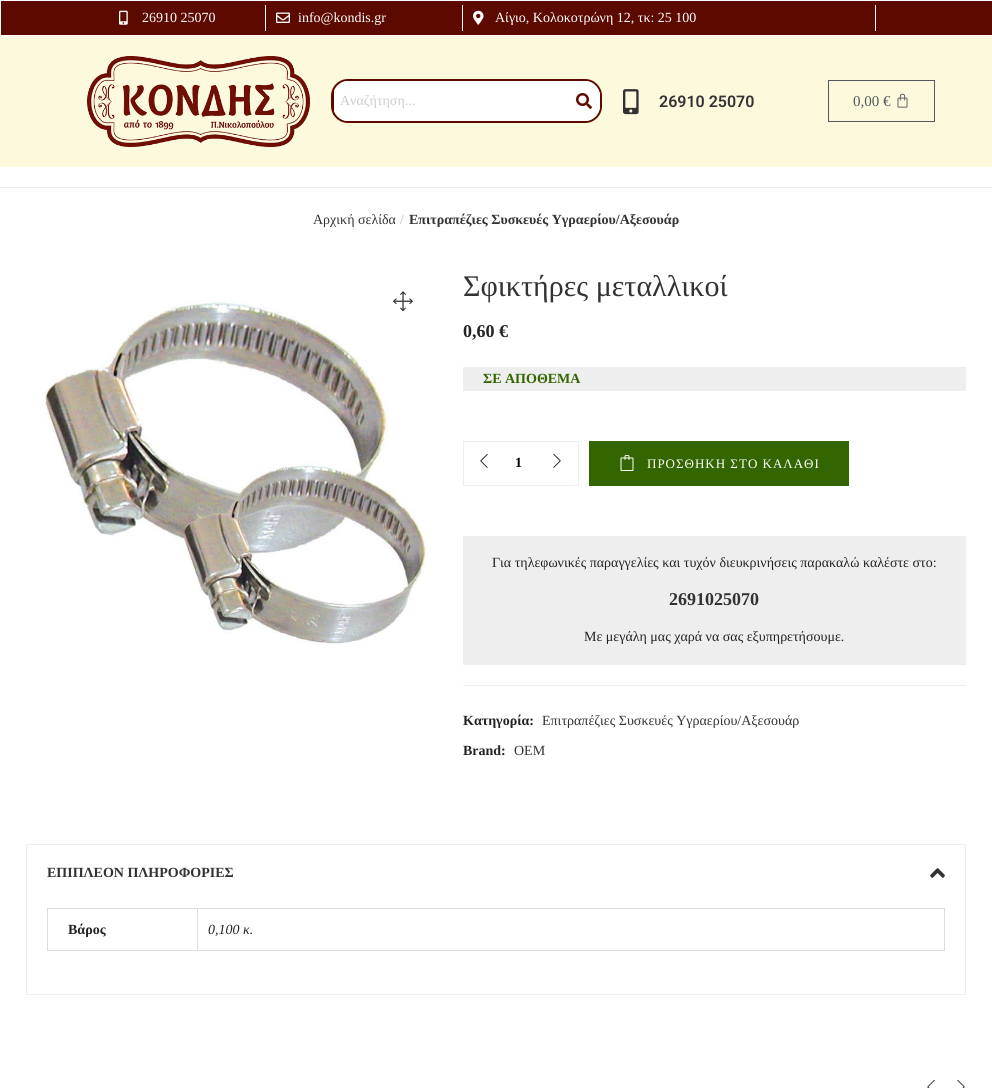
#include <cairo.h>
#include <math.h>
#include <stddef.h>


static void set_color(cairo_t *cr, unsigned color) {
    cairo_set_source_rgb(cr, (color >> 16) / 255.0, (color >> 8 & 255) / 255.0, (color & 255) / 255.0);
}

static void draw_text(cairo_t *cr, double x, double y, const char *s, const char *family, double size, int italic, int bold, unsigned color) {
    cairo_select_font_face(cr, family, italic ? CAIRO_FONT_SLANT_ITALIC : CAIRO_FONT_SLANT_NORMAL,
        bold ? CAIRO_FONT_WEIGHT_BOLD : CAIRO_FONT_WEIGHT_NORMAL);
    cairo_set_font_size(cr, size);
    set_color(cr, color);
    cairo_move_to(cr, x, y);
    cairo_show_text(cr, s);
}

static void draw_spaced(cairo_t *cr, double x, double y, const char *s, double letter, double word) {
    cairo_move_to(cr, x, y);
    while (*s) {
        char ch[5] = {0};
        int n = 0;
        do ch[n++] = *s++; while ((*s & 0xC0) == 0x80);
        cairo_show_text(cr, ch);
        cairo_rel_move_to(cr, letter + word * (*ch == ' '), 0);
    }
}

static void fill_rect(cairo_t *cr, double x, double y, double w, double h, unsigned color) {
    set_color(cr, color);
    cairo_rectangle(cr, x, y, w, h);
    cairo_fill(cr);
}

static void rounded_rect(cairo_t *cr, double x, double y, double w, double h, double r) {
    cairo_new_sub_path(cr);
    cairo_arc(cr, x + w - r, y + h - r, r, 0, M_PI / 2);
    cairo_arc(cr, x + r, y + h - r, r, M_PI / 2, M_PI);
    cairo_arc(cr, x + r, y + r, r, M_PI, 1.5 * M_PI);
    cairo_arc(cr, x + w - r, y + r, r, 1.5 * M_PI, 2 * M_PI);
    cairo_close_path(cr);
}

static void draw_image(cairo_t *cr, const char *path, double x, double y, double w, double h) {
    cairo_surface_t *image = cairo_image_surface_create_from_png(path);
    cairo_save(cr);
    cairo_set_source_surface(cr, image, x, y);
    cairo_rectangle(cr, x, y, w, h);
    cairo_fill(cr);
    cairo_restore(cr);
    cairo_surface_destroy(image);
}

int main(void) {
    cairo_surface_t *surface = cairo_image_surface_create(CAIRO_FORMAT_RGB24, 992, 1088);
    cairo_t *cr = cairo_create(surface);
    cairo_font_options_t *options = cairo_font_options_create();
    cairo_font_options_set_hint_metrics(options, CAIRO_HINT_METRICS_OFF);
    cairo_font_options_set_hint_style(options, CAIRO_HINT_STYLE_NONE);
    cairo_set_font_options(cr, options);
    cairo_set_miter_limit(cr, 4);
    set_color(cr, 0xFFFFFF);
    cairo_paint(cr);
    fill_rect(cr, 1, 1, 991, 34, 0x5C0A00);
    fill_rect(cr, 265, 5, 1, 26, 0xFFFFFF);
    draw_image(cr, "assets/img1.png", 119, 10, 9, 15);
    draw_text(cr, 142, 22, "26910 25070", "Liberation Serif", 14, 0, 0, 0xFFFFFF);
    fill_rect(cr, 462, 5, 1, 26, 0xFFFFFF);
    draw_image(cr, "assets/img2.png", 276, 12, 14, 11);
    draw_text(cr, 298, 22, "info@kondis.gr", "Liberation Serif", 14, 0, 0, 0xFFFFFF);
    fill_rect(cr, 875, 5, 1, 26, 0xFFFFFF);
    draw_image(cr, "assets/img3.png", 473, 10, 11, 15);
    draw_text(cr, 495, 22, "Αίγιο, Κολοκοτρώνη 12, τκ: 25 100", "Liberation Serif", 14, 0, 0, 0xFFFFFF);
    fill_rect(cr, 0, 36, 992, 131, 0xFDF9DC);
    draw_image(cr, "assets/img4.png", 87, 56, 223, 91);
    rounded_rect(cr, 332, 80, 269, 42, 16);
    set_color(cr, 0x5C0A00);
    cairo_stroke(cr);
    fill_rect(cr, 333, 88, 1, 27, 0x5C0A00);
    set_color(cr, 0xFFFFFF);
    cairo_new_path(cr);
    cairo_move_to(cr, 348, 81);
    cairo_curve_to(cr, 340, 81, 334, 88, 334, 96);
    cairo_line_to(cr, 334, 106);
    cairo_curve_to(cr, 334, 114, 340, 121, 348, 121);
    cairo_line_to(cr, 568, 121);
    cairo_line_to(cr, 568, 81);
    cairo_close_path(cr);
    cairo_fill(cr);
    draw_text(cr, 340, 105, "Αναζήτηση...", "Liberation Serif", 14, 0, 0, 0xCCCCCC);
    set_color(cr, 0xFFFFFF);
    cairo_new_path(cr);
    cairo_move_to(cr, 568, 81);
    cairo_line_to(cr, 568, 121);
    cairo_line_to(cr, 585, 121);
    cairo_curve_to(cr, 593, 121, 600, 114, 600, 106);
    cairo_line_to(cr, 600, 96);
    cairo_curve_to(cr, 600, 88, 593, 81, 585, 81);
    cairo_close_path(cr);
    cairo_fill(cr);
    draw_image(cr, "assets/img5.png", 576, 93, 16, 16);
    draw_image(cr, "assets/img6.png", 623, 89, 16, 26);
    draw_text(cr, 659, 107, "26910 25070", "Roboto SemiBold", 16, 0, 0, 0x333333);
    cairo_rectangle(cr, 828.5, 80.5, 106, 41);
    set_color(cr, 0x54595F);
    cairo_set_line_width(cr, 1);
    cairo_stroke(cr);
    draw_text(cr, 853, 106, "0,00 €", "Liberation Serif", 15, 0, 0, 0x54595F);
    draw_image(cr, "assets/img7.png", 897, 93, 11, 15);
    fill_rect(cr, 0, 187, 992, 1, 0xEEEEEE);
    draw_text(cr, 313, 224, "Αρχική σελίδα", "Liberation Serif", 14, 0, 0, 0x333333);
    draw_text(cr, 400, 224, "/", "Liberation Serif", 14, 0, 1, 0xCCCCCC);
    draw_text(cr, 409, 224, "Επιτραπέζιες Συσκευές Υγραερίου/Αξεσουάρ", "Liberation Serif", 14, 0, 1, 0x333333);
    draw_image(cr, "assets/img9.png", 45, 300, 382, 344);
    draw_image(cr, "assets/img8.png", 393, 291, 20, 21);
    draw_text(cr, 463, 296, "Σφικτήρες μεταλλικοί", "Liberation Serif", 30, 0, 0, 0x333333);
    draw_text(cr, 463, 337, "0,60 €", "Liberation Serif", 18, 0, 1, 0x232323);
    fill_rect(cr, 463, 367, 503, 24, 0xEEEEEE);
    draw_text(cr, 483, 383, "ΣΕ ΑΠΟΘΕΜΑ", "Liberation Serif", 14, 0, 1, 0x336600);
    cairo_rectangle(cr, 463.5, 441.5, 115, 44);
    set_color(cr, 0xEEEEEE);
    cairo_stroke(cr);
    draw_image(cr, "assets/img10.png", 480, 453, 8, 15);
    draw_text(cr, 515, 467, "1", "Liberation Serif", 14, 0, 1, 0x000000);
    draw_image(cr, "assets/img11.png", 553, 453, 8, 15);
    fill_rect(cr, 589, 441, 260, 45, 0x336600);
    draw_image(cr, "assets/img12.png", 620, 455, 14, 16);
    cairo_select_font_face(cr, "Liberation Serif", CAIRO_FONT_SLANT_NORMAL, CAIRO_FONT_WEIGHT_NORMAL);
    cairo_set_font_size(cr, 13);
    set_color(cr, 0xFFFFFF);
    draw_spaced(cr, 647, 468, "ΠΡΟΣΘΗΚΗ ΣΤΟ ΚΑΛΑΘΙ", 1, 0);
    fill_rect(cr, 463, 536, 503, 129, 0xEEEEEE);
    draw_text(cr, 492, 567, "Για τηλεφωνικές παραγγελίες και τυχόν διευκρινήσεις παρακαλώ καλέστε στο:", "Liberation Serif", 14, 0, 0, 0x232323);
    draw_text(cr, 669, 605, "2691025070", "Liberation Serif", 18, 0, 1, 0x333333);
    draw_text(cr, 584, 641, "Με μεγάλη μας χαρά να σας εξυπηρετήσουμε.", "Liberation Serif", 14, 0, 0, 0x232323);
    fill_rect(cr, 463, 685, 503, 1, 0xEEEEEE);
    draw_text(cr, 463, 725, "Κατηγορία:", "Liberation Serif", 14, 0, 1, 0x232323);
    draw_text(cr, 542, 725, "Επιτραπέζιες Συσκευές Υγραερίου/Αξεσουάρ", "Liberation Serif", 14, 0, 0, 0x333333);
    draw_text(cr, 463, 755, "Brand:", "Liberation Serif", 14, 0, 1, 0x232323);
    draw_text(cr, 514, 755, "OEM", "Liberation Serif", 14, 0, 0, 0x333333);
    cairo_rectangle(cr, 26.5, 844.5, 939, 150);
    set_color(cr, 0xEEEEEE);
    cairo_stroke(cr);
    draw_text(cr, 47, 877, "ΕΠΙΠΛΕΟΝ ΠΛΗΡΟΦΟΡΙΕΣ", "Liberation Serif", 14, 0, 1, 0x333333);
    draw_image(cr, "assets/img13.png", 930, 868, 15, 10);
    fill_rect(cr, 197, 908, 748, 1, 0xDDDDDD);
    fill_rect(cr, 944, 908, 1, 43, 0xDDDDDD);
    fill_rect(cr, 197, 950, 748, 1, 0xDDDDDD);
    fill_rect(cr, 197, 908, 1, 43, 0xDDDDDD);
    fill_rect(cr, 47, 908, 151, 1, 0xDDDDDD);
    fill_rect(cr, 47, 950, 151, 1, 0xDDDDDD);
    fill_rect(cr, 47, 908, 1, 43, 0xDDDDDD);
    draw_text(cr, 68, 934, "Βάρος", "Liberation Serif", 14, 0, 1, 0x232323);
    draw_text(cr, 208, 934, "0,100 κ.", "Liberation Serif", 14, 1, 0, 0x232323);
    draw_image(cr, "assets/img14.png", 927, 1079, 8, 9);
    draw_image(cr, "assets/img15.png", 957, 1079, 8, 9);
    cairo_surface_write_to_png(surface, "output.png");
    cairo_font_options_destroy(options);
    cairo_destroy(cr);
    cairo_surface_destroy(surface);
    return 0;
}
